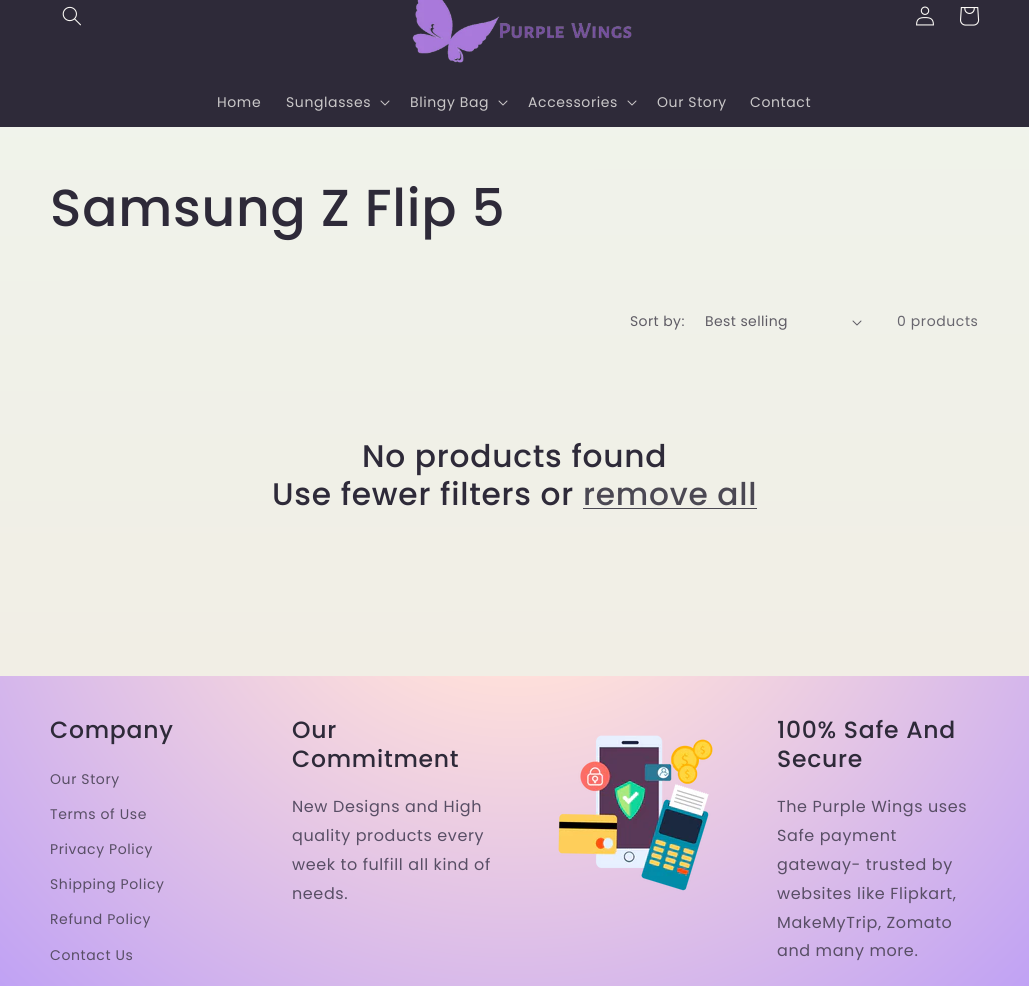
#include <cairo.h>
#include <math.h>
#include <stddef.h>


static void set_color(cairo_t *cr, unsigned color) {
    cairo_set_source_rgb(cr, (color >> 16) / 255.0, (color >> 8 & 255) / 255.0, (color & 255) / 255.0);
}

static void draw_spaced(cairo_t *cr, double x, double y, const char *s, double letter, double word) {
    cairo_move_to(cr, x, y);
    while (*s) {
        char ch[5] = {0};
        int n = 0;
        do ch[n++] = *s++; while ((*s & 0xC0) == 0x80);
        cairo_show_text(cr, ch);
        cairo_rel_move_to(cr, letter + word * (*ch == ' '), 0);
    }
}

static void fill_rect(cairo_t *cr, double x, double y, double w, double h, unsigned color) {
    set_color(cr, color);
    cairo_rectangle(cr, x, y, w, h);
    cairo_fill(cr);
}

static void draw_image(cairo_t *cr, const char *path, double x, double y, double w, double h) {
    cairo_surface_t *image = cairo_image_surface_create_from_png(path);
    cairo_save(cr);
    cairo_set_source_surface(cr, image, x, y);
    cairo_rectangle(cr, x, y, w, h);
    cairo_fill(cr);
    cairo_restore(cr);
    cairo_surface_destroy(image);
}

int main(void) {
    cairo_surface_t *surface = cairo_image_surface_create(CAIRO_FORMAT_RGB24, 1029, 986);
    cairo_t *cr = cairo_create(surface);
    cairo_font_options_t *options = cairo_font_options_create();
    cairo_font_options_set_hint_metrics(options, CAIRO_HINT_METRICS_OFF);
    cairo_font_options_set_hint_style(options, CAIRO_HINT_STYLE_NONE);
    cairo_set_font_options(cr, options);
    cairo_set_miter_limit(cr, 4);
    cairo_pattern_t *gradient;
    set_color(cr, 0xFFFFFF);
    cairo_paint(cr);
    gradient = cairo_pattern_create_linear(514, 0, 515, 986);
    cairo_pattern_add_color_stop_rgba(gradient, 0, 0.941, 0.957, 0.925, 1);
    cairo_pattern_add_color_stop_rgba(gradient, 1, 0.945, 0.922, 0.886, 1);
    cairo_set_source(cr, gradient);
    cairo_pattern_destroy(gradient);
    cairo_rectangle(cr, 0, 127, 1029, 549);
    cairo_fill(cr);
    fill_rect(cr, 0, 0, 1029, 127, 0x2E2A39);
    draw_image(cr, "assets/img1.png", 62, 6, 19, 20);
    draw_image(cr, "assets/img2.png", 412, 0, 220, 63);
    draw_image(cr, "assets/img3.png", 916, 6, 18, 20);
    draw_image(cr, "assets/img4.png", 960, 7, 20, 19);
    cairo_select_font_face(cr, "Poppins", CAIRO_FONT_SLANT_NORMAL, CAIRO_FONT_WEIGHT_NORMAL);
    cairo_set_font_size(cr, 14);
    set_color(cr, 0xC9C7C8);
    draw_spaced(cr, 217, 107, "Home", 0.6, 0);
    draw_spaced(cr, 286, 107, "Sunglasses", 0.6, 0);
    draw_image(cr, "assets/img5.png", 380, 100, 10, 6);
    draw_spaced(cr, 410, 107, "Blingy Bag", 0.6, 0);
    draw_image(cr, "assets/img5.png", 498, 100, 10, 6);
    draw_spaced(cr, 528, 107, "Accessories", 0.6, 0);
    draw_image(cr, "assets/img5.png", 627, 100, 10, 6);
    draw_spaced(cr, 657, 107, "Our Story", 0.6, 0);
    draw_spaced(cr, 750, 107, "Contact", 0.6, 0);
    cairo_select_font_face(cr, "Poppins Medium", CAIRO_FONT_SLANT_NORMAL, CAIRO_FONT_WEIGHT_NORMAL);
    cairo_set_font_size(cr, 52);
    set_color(cr, 0x2E2A39);
    draw_spaced(cr, 50, 226, "Samsung Z Flip 5", 0.75, 0);
    cairo_select_font_face(cr, "Poppins", CAIRO_FONT_SLANT_NORMAL, CAIRO_FONT_WEIGHT_NORMAL);
    cairo_set_font_size(cr, 14);
    set_color(cr, 0x5F5C65);
    draw_spaced(cr, 630, 326, "Sort by:", 0.4, 0);
    draw_spaced(cr, 705, 326, "Best selling", 0.4, 0);
    draw_image(cr, "assets/img6.png", 852, 320, 10, 6);
    set_color(cr, 0x68666E);
    draw_spaced(cr, 897, 326, "0 products", 0.6, 0);
    cairo_select_font_face(cr, "Poppins Medium", CAIRO_FONT_SLANT_NORMAL, CAIRO_FONT_WEIGHT_NORMAL);
    cairo_set_font_size(cr, 31.25);
    set_color(cr, 0x2E2A39);
    draw_spaced(cr, 362, 467, "No products found", 0.75, 0);
    draw_spaced(cr, 272, 505, "Use fewer filters or", 0.75, 0);
    set_color(cr, 0x4B4853);
    draw_spaced(cr, 583, 505, "remove all", 0.75, 0);
    fill_rect(cr, 583, 508, 174, 1, 0x4B4853);
    gradient = cairo_pattern_create_radial(0, 0, 0, 0, 0, 1);
    cairo_pattern_set_matrix(gradient, &(cairo_matrix_t){1.0 / 728, 0, 0, 1.0 / 697, -1.0 * 515 / 728, -1.0 * 493 / 697});
    cairo_pattern_add_color_stop_rgba(gradient, 0, 1, 0.898, 0.898, 1);
    cairo_pattern_add_color_stop_rgba(gradient, 0.25, 1, 0.878, 0.855, 1);
    cairo_pattern_add_color_stop_rgba(gradient, 1, 0.753, 0.635, 0.957, 1);
    cairo_set_source(cr, gradient);
    cairo_pattern_destroy(gradient);
    cairo_rectangle(cr, 0, 676, 1029, 310);
    cairo_fill(cr);
    cairo_set_font_size(cr, 23.5);
    set_color(cr, 0x2E2A39);
    draw_spaced(cr, 50, 738, "Company", 0.75, 0);
    cairo_select_font_face(cr, "Poppins", CAIRO_FONT_SLANT_NORMAL, CAIRO_FONT_WEIGHT_NORMAL);
    cairo_set_font_size(cr, 14);
    set_color(cr, 0x584E65);
    draw_spaced(cr, 50, 784, "Our Story", 0.6, 0);
    draw_spaced(cr, 50, 819, "Terms of Use", 0.6, 0);
    draw_spaced(cr, 50, 854, "Privacy Policy", 0.6, 0);
    draw_spaced(cr, 50, 889, "Shipping Policy", 0.6, 0);
    draw_spaced(cr, 50, 924, "Refund Policy", 0.6, 0);
    draw_spaced(cr, 50, 960, "Contact Us", 0.6, 0);
    cairo_select_font_face(cr, "Poppins Medium", CAIRO_FONT_SLANT_NORMAL, CAIRO_FONT_WEIGHT_NORMAL);
    cairo_set_font_size(cr, 23.5);
    set_color(cr, 0x2E2A39);
    draw_spaced(cr, 292, 738, "Our", 0.75, 0);
    draw_spaced(cr, 292, 767, "Commitment", 0.75, 0);
    cairo_select_font_face(cr, "Poppins", CAIRO_FONT_SLANT_NORMAL, CAIRO_FONT_WEIGHT_NORMAL);
    cairo_set_font_size(cr, 16);
    set_color(cr, 0x584E65);
    draw_spaced(cr, 292, 812, "New Designs and High", 0.6, 0);
    draw_spaced(cr, 292, 841, "quality products every", 0.6, 0);
    draw_spaced(cr, 292, 870, "week to fulfill all kind of", 0.6, 0);
    draw_spaced(cr, 292, 899, "needs.", 0.6, 0);
    draw_image(cr, "assets/img7.png", 558, 735, 155, 156);
    cairo_select_font_face(cr, "Poppins Medium", CAIRO_FONT_SLANT_NORMAL, CAIRO_FONT_WEIGHT_NORMAL);
    cairo_set_font_size(cr, 23.5);
    set_color(cr, 0x2E2A39);
    draw_spaced(cr, 777, 738, "100% Safe And", 0.75, 0);
    draw_spaced(cr, 777, 767, "Secure", 0.75, 0);
    cairo_select_font_face(cr, "Poppins", CAIRO_FONT_SLANT_NORMAL, CAIRO_FONT_WEIGHT_NORMAL);
    cairo_set_font_size(cr, 16);
    set_color(cr, 0x584E65);
    draw_spaced(cr, 777, 812, "The Purple Wings uses", 0.6, 0);
    draw_spaced(cr, 777, 841, "Safe payment", 0.6, 0);
    draw_spaced(cr, 777, 870, "gateway- trusted by", 0.6, 0);
    draw_spaced(cr, 777, 899, "websites like Flipkart,", 0.6, 0);
    draw_spaced(cr, 777, 928, "MakeMyTrip, Zomato", 0.6, 0);
    draw_spaced(cr, 777, 956, "and many more.", 0.6, 0);
    cairo_surface_write_to_png(surface, "output.png");
    cairo_font_options_destroy(options);
    cairo_destroy(cr);
    cairo_surface_destroy(surface);
    return 0;
}
